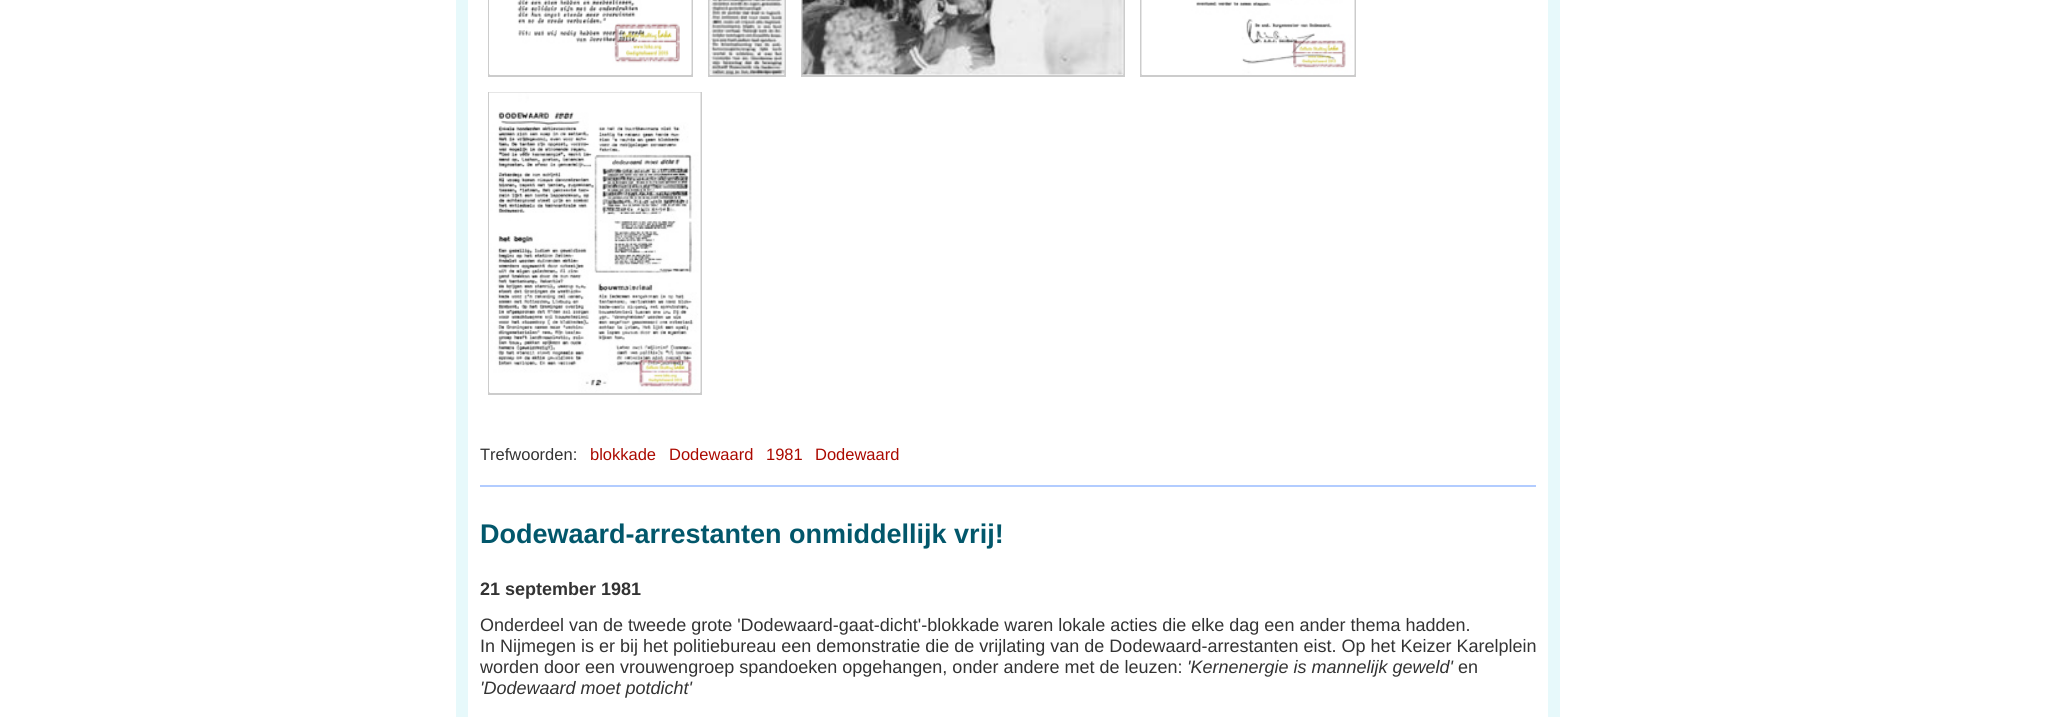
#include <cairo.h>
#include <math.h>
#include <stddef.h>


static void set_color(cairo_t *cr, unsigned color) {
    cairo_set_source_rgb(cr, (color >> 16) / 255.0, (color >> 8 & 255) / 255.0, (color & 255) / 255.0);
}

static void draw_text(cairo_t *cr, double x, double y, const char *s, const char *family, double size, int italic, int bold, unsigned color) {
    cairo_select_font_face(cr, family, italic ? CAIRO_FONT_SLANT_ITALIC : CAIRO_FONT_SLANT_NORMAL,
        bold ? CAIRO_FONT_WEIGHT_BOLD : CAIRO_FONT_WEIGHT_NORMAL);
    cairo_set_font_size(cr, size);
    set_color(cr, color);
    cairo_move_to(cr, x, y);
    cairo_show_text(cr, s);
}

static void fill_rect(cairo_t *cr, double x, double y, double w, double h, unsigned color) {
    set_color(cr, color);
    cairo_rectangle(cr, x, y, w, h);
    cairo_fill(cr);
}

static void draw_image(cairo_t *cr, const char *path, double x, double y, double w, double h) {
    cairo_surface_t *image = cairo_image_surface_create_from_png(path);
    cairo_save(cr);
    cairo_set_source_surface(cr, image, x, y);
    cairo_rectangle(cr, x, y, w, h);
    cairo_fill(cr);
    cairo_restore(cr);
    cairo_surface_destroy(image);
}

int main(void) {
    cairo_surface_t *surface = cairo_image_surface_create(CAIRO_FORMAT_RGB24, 2061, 717);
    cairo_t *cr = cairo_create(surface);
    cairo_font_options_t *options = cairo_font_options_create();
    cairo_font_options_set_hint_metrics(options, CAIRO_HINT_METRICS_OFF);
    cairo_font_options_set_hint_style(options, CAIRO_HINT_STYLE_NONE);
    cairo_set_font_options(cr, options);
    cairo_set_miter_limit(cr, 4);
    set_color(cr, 0xFFFFFF);
    cairo_paint(cr);
    cairo_rectangle(cr, 462, -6, 1092, 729);
    set_color(cr, 0xE7F9FB);
    cairo_set_line_width(cr, 12);
    cairo_stroke(cr);
    cairo_rectangle(cr, 489, -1, 203, 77);
    set_color(cr, 0xCCCCCC);
    cairo_set_line_width(cr, 2);
    cairo_stroke(cr);
    cairo_rectangle(cr, 709, -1, 76, 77);
    cairo_stroke(cr);
    cairo_rectangle(cr, 802, -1, 322, 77);
    cairo_stroke(cr);
    cairo_rectangle(cr, 1141, -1, 214, 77);
    cairo_stroke(cr);
    draw_image(cr, "assets/img1.png", 489, 0, 203, 75);
    draw_image(cr, "assets/img2.png", 709, 0, 76, 75);
    draw_image(cr, "assets/img3.png", 802, 0, 322, 75);
    draw_image(cr, "assets/img4.png", 1141, 0, 214, 75);
    cairo_rectangle(cr, 489, 93, 212, 301);
    cairo_stroke(cr);
    draw_image(cr, "assets/img5.png", 489, 92, 212, 301);
    draw_text(cr, 480, 460, "Trefwoorden:", "Liberation Sans", 16.5, 0, 0, 0x333333);
    draw_text(cr, 590, 460, "blokkade", "Liberation Sans", 16.5, 0, 0, 0xAB0900);
    draw_text(cr, 669, 460, "Dodewaard", "Liberation Sans", 16.5, 0, 0, 0xAB0900);
    draw_text(cr, 766, 460, "1981", "Liberation Sans", 16.5, 0, 0, 0xAB0900);
    draw_text(cr, 815, 460, "Dodewaard", "Liberation Sans", 16.5, 0, 0, 0xAB0900);
    fill_rect(cr, 480, 485, 1056, 2, 0xB2CCFF);
    draw_text(cr, 480, 543, "Dodewaard-arrestanten onmiddellijk vrij!", "Liberation Sans", 27, 0, 1, 0x02576B);
    draw_text(cr, 480, 595, "21 september 1981", "Liberation Sans", 18, 0, 1, 0x333333);
    draw_text(cr, 480, 631, "Onderdeel van de tweede grote 'Dodewaard-gaat-dicht'-blokkade waren lokale acties die elke dag een ander thema hadden.", "Liberation Sans", 18, 0, 0, 0x333333);
    draw_text(cr, 480, 652, "In Nijmegen is er bij het politiebureau een demonstratie die de vrijlating van de Dodewaard-arrestanten eist. Op het Keizer Karelplein", "Liberation Sans", 18, 0, 0, 0x333333);
    draw_text(cr, 480, 673, "worden door een vrouwengroep spandoeken opgehangen, onder andere met de leuzen:", "Liberation Sans", 18, 0, 0, 0x333333);
    draw_text(cr, 1187, 673, "'Kernenergie is mannelijk geweld'", "Liberation Sans", 18, 1, 0, 0x333333);
    draw_text(cr, 1458, 673, "en", "Liberation Sans", 18, 0, 0, 0x333333);
    draw_text(cr, 480, 694, "'Dodewaard moet potdicht'", "Liberation Sans", 18, 1, 0, 0x333333);
    cairo_surface_write_to_png(surface, "output.png");
    cairo_font_options_destroy(options);
    cairo_destroy(cr);
    cairo_surface_destroy(surface);
    return 0;
}
